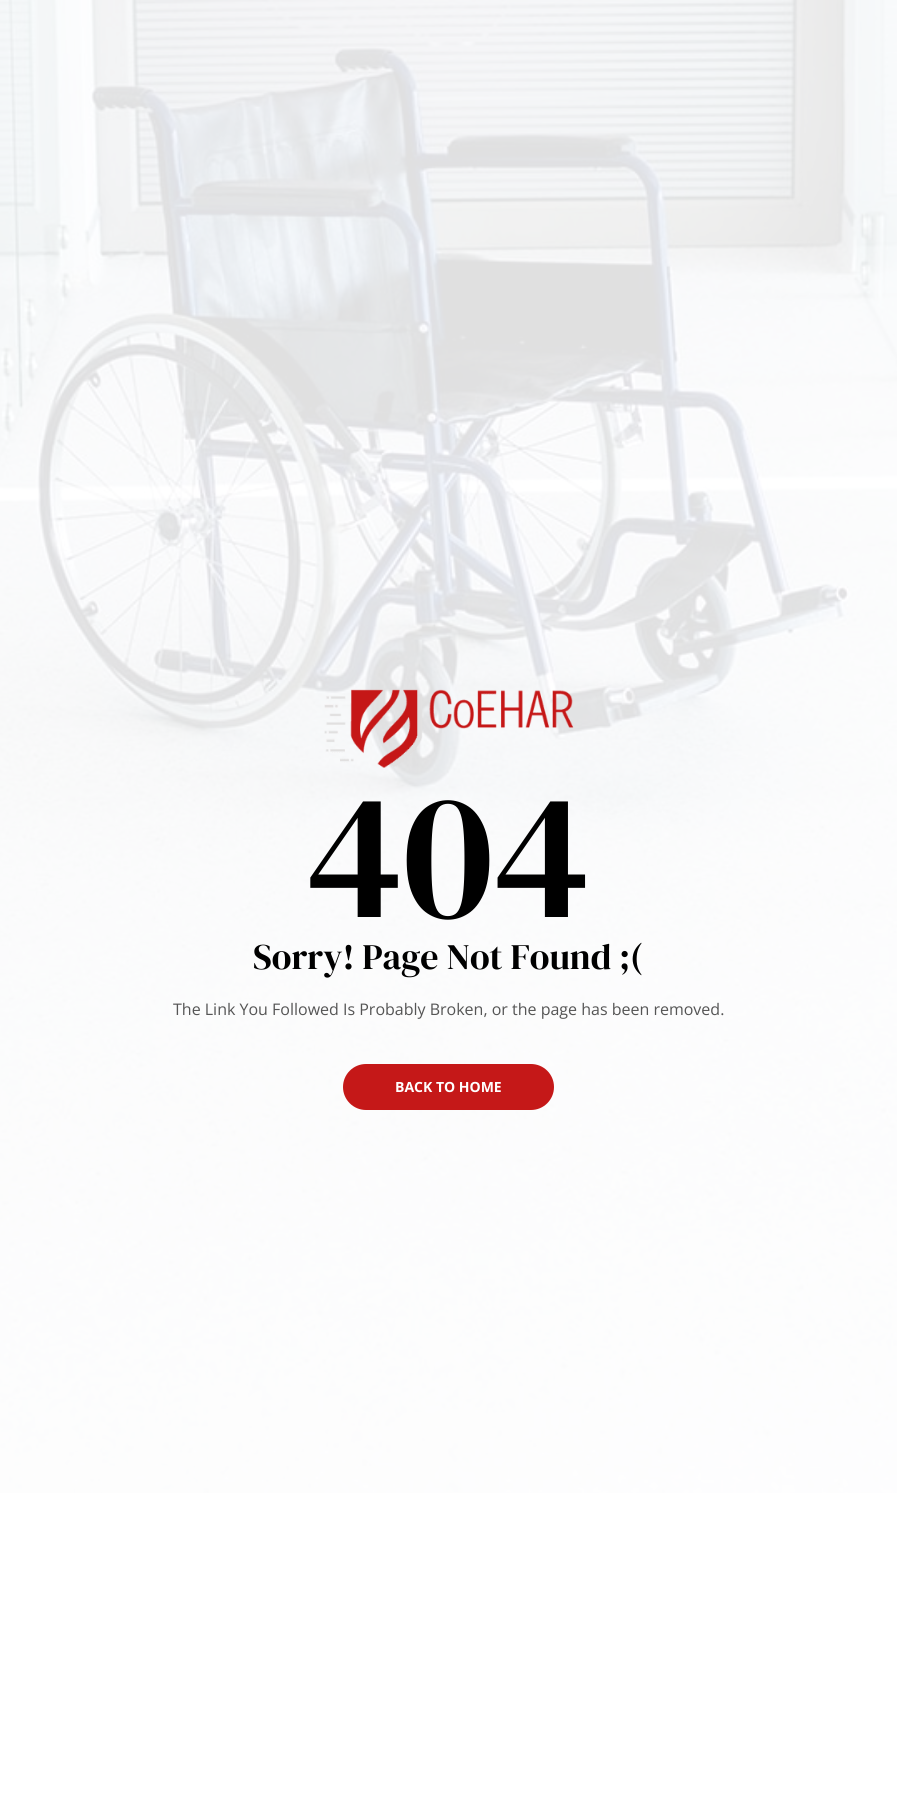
#include <cairo.h>
#include <math.h>
#include <stddef.h>


static void set_color(cairo_t *cr, unsigned color) {
    cairo_set_source_rgb(cr, (color >> 16) / 255.0, (color >> 8 & 255) / 255.0, (color & 255) / 255.0);
}

static void draw_text(cairo_t *cr, double x, double y, const char *s, const char *family, double size, int italic, int bold, unsigned color) {
    cairo_select_font_face(cr, family, italic ? CAIRO_FONT_SLANT_ITALIC : CAIRO_FONT_SLANT_NORMAL,
        bold ? CAIRO_FONT_WEIGHT_BOLD : CAIRO_FONT_WEIGHT_NORMAL);
    cairo_set_font_size(cr, size);
    set_color(cr, color);
    cairo_move_to(cr, x, y);
    cairo_show_text(cr, s);
}

static void rounded_rect(cairo_t *cr, double x, double y, double w, double h, double r) {
    cairo_new_sub_path(cr);
    cairo_arc(cr, x + w - r, y + h - r, r, 0, M_PI / 2);
    cairo_arc(cr, x + r, y + h - r, r, M_PI / 2, M_PI);
    cairo_arc(cr, x + r, y + r, r, M_PI, 1.5 * M_PI);
    cairo_arc(cr, x + w - r, y + r, r, 1.5 * M_PI, 2 * M_PI);
    cairo_close_path(cr);
}

static void draw_image(cairo_t *cr, const char *path, double x, double y, double w, double h) {
    cairo_surface_t *image = cairo_image_surface_create_from_png(path);
    cairo_save(cr);
    cairo_set_source_surface(cr, image, x, y);
    cairo_rectangle(cr, x, y, w, h);
    cairo_fill(cr);
    cairo_restore(cr);
    cairo_surface_destroy(image);
}

int main(void) {
    cairo_surface_t *surface = cairo_image_surface_create(CAIRO_FORMAT_RGB24, 897, 1799);
    cairo_t *cr = cairo_create(surface);
    cairo_font_options_t *options = cairo_font_options_create();
    cairo_font_options_set_hint_metrics(options, CAIRO_HINT_METRICS_OFF);
    cairo_font_options_set_hint_style(options, CAIRO_HINT_STYLE_NONE);
    cairo_set_font_options(cr, options);
    cairo_set_miter_limit(cr, 4);
    set_color(cr, 0xFFFFFF);
    cairo_paint(cr);
    draw_image(cr, "assets/img1.png", 0, 0, 897, 1493);
    draw_image(cr, "assets/img2.png", 324, 689, 250, 79);
    draw_text(cr, 306, 917, "404", "DM Serif Display", 180, 0, 0, 0x000000);
    draw_text(cr, 253, 969, "Sorry! Page Not Found ;(", "DM Serif Display", 36, 0, 0, 0x000000);
    draw_text(cr, 173, 1015, "The Link You Followed Is Probably Broken, or the page has been removed.", "Open Sans", 16, 0, 0, 0x555555);
    set_color(cr, 0xC51818);
    rounded_rect(cr, 343, 1064, 211, 46, 23);
    cairo_fill(cr);
    draw_text(cr, 395, 1092, "BACK TO HOME", "Open Sans", 14, 0, 1, 0xFFFFFF);
    cairo_surface_write_to_png(surface, "output.png");
    cairo_font_options_destroy(options);
    cairo_destroy(cr);
    cairo_surface_destroy(surface);
    return 0;
}
